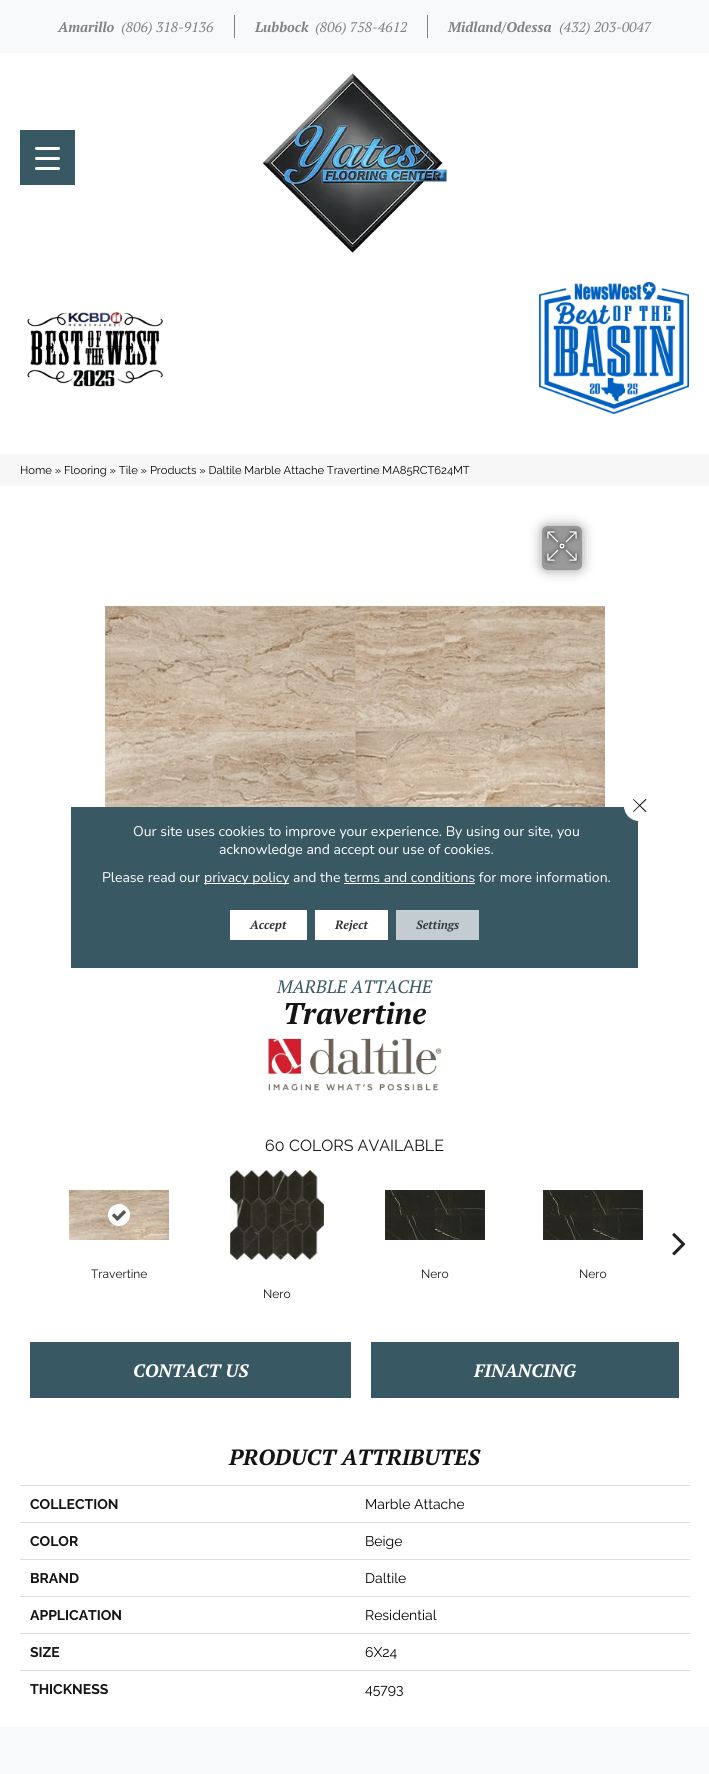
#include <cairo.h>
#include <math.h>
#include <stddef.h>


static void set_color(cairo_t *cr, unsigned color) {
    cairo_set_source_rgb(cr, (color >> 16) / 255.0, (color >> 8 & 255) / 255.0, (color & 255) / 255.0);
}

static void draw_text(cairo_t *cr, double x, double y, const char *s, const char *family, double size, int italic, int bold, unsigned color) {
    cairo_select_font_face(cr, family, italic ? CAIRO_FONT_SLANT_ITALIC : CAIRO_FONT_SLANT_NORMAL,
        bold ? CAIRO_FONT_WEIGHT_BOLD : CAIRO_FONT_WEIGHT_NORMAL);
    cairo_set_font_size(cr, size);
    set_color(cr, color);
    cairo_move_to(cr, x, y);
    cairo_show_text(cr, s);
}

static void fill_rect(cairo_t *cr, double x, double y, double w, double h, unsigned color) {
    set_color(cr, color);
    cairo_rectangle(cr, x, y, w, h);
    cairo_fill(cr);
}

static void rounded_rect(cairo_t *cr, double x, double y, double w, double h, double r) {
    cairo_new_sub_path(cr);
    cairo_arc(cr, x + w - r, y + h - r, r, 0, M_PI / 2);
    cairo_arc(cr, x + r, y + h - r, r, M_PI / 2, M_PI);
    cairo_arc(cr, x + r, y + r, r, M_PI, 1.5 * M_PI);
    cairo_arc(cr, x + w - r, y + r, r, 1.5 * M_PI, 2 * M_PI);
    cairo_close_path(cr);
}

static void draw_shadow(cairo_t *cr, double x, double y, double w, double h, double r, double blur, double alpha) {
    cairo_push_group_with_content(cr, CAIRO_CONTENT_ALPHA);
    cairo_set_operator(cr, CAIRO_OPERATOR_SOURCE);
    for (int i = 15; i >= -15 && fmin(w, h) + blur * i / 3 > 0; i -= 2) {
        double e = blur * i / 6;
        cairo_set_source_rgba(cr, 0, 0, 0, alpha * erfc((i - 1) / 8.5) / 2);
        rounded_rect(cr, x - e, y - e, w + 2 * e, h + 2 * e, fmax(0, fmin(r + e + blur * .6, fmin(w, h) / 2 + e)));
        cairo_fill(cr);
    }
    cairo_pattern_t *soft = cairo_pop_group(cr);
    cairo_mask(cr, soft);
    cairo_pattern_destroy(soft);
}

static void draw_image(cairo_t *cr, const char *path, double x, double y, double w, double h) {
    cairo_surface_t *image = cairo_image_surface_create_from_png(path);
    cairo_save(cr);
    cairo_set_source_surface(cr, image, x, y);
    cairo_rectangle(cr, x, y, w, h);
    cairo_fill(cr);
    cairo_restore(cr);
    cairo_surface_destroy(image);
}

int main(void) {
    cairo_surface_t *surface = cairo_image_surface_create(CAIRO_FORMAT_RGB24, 709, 1774);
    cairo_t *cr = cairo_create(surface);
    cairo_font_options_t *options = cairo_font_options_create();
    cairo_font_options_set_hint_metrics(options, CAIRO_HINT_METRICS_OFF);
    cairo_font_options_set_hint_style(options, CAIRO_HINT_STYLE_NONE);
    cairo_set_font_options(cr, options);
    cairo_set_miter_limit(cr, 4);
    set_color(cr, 0xFFFFFF);
    cairo_paint(cr);
    fill_rect(cr, 0, 0, 709, 53, 0xF7F9FB);
    fill_rect(cr, 234, 15, 1, 23, 0x828282);
    draw_text(cr, 58, 32, "Amarillo", "PT Serif", 14, 1, 1, 0x828282);
    draw_text(cr, 121, 32, "(806) 318-9136", "PT Serif", 14, 1, 0, 0x828282);
    fill_rect(cr, 427, 15, 1, 23, 0x828282);
    draw_text(cr, 255, 32, "Lubbock", "PT Serif", 14, 1, 1, 0x828282);
    draw_text(cr, 315, 32, "(806) 758-4612", "PT Serif", 14, 1, 0, 0x828282);
    draw_text(cr, 448, 32, "Midland/Odessa", "PT Serif", 14, 1, 1, 0x828282);
    draw_text(cr, 559, 32, "(432) 203-0047", "PT Serif", 14, 1, 0, 0x828282);
    draw_image(cr, "assets/img1.png", 262, 73, 185, 180);
    draw_image(cr, "assets/img2.png", 27, 311, 136, 76);
    draw_image(cr, "assets/img3.png", 539, 282, 150, 132);
    fill_rect(cr, 0, 454, 709, 32, 0xF7F7F7);
    draw_text(cr, 20, 474, "Home » Flooring » Tile » Products » Daltile Marble Attache Travertine MA85RCT624MT", "Raleway", 11.2, 0, 0, 0x000000);
    cairo_save(cr);
    cairo_set_fill_rule(cr, CAIRO_FILL_RULE_EVEN_ODD);
    cairo_new_path(cr);
    cairo_move_to(cr, 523, 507);
    cairo_line_to(cr, 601, 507);
    cairo_line_to(cr, 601, 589);
    cairo_line_to(cr, 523, 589);
    cairo_close_path(cr);
    cairo_move_to(cr, 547, 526);
    cairo_line_to(cr, 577, 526);
    cairo_curve_to(cr, 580, 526, 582, 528, 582, 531);
    cairo_line_to(cr, 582, 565);
    cairo_curve_to(cr, 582, 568, 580, 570, 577, 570);
    cairo_line_to(cr, 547, 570);
    cairo_curve_to(cr, 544, 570, 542, 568, 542, 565);
    cairo_line_to(cr, 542, 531);
    cairo_curve_to(cr, 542, 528, 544, 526, 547, 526);
    cairo_close_path(cr);
    cairo_clip(cr);
    set_color(cr, 0x000000);
    draw_shadow(cr, 542, 526, 40, 44, 5, 6, 0.41);
    cairo_restore(cr);
    cairo_set_source_rgba(cr, 0, 0, 0, 0.4);
    rounded_rect(cr, 542, 526, 40, 44, 5);
    cairo_fill(cr);
    draw_image(cr, "assets/img4.png", 543, 527, 38, 38);
    draw_image(cr, "assets/img5.png", 105, 606, 500, 201);
    draw_text(cr, 277, 993, "MARBLE ATTACHE", "PT Serif", 18, 1, 0, 0x385864);
    draw_text(cr, 283, 1024, "Travertine", "PT Serif", 30, 1, 1, 0x141414);
    draw_image(cr, "assets/img6.png", 268, 1037, 174, 54);
    draw_text(cr, 265, 1151, "60", "Raleway", 16, 0, 0, 0x141414);
    draw_text(cr, 289, 1151, "COLORS AVAILABLE", "Raleway", 16, 0, 0, 0x141414);
    draw_image(cr, "assets/img7.png", 672, 1233, 14, 23);
    draw_image(cr, "assets/img8.png", 69, 1190, 100, 50);
    set_color(cr, 0xFFFFFF);
    cairo_arc(cr, 119, 1215, 11, 0, 2 * M_PI);
    cairo_fill(cr);
    draw_image(cr, "assets/img9.png", 112, 1210, 14, 11);
    draw_text(cr, 91, 1278, "Travertine", "Raleway", 12, 0, 0, 0x141414);
    draw_image(cr, "assets/img10.png", 385, 1190, 100, 50);
    draw_text(cr, 421, 1278, "Nero", "Raleway", 12, 0, 0, 0x141414);
    draw_image(cr, "assets/img10.png", 543, 1190, 100, 50);
    draw_text(cr, 579, 1278, "Nero", "Raleway", 12, 0, 0, 0x141414);
    draw_image(cr, "assets/img11.png", 230, 1170, 94, 90);
    draw_text(cr, 263, 1298, "Nero", "Raleway", 12, 0, 0, 0x141414);
    fill_rect(cr, 30, 1342, 321, 56, 0x385864);
    draw_text(cr, 133, 1377, "CONTACT US", "PT Serif", 18, 1, 1, 0xFFFFFF);
    fill_rect(cr, 371, 1342, 308, 56, 0x385864);
    draw_text(cr, 474, 1377, "FINANCING", "PT Serif", 18, 1, 1, 0xFFFFFF);
    draw_text(cr, 229, 1465, "PRODUCT ATTRIBUTES", "PT Serif", 22, 1, 1, 0x141414);
    draw_text(cr, 30, 1509, "COLLECTION", "Raleway", 14, 0, 1, 0x141414);
    fill_rect(cr, 20, 1485, 670, 1, 0xDDDDDD);
    draw_text(cr, 365, 1509, "Marble Attache", "Raleway", 14, 0, 0, 0x000000);
    draw_text(cr, 30, 1546, "COLOR", "Raleway", 14, 0, 1, 0x141414);
    fill_rect(cr, 20, 1522, 670, 1, 0xDDDDDD);
    draw_text(cr, 365, 1546, "Beige", "Raleway", 14, 0, 0, 0x000000);
    draw_text(cr, 30, 1583, "BRAND", "Raleway", 14, 0, 1, 0x141414);
    fill_rect(cr, 20, 1559, 670, 1, 0xDDDDDD);
    draw_text(cr, 365, 1583, "Daltile", "Raleway", 14, 0, 0, 0x000000);
    draw_text(cr, 30, 1620, "APPLICATION", "Raleway", 14, 0, 1, 0x141414);
    fill_rect(cr, 20, 1596, 670, 1, 0xDDDDDD);
    draw_text(cr, 365, 1620, "Residential", "Raleway", 14, 0, 0, 0x000000);
    draw_text(cr, 30, 1657, "SIZE", "Raleway", 14, 0, 1, 0x141414);
    fill_rect(cr, 20, 1633, 670, 1, 0xDDDDDD);
    draw_text(cr, 365, 1657, "6X24", "Raleway", 14, 0, 0, 0x000000);
    draw_text(cr, 30, 1694, "THICKNESS", "Raleway", 14, 0, 1, 0x141414);
    fill_rect(cr, 20, 1670, 670, 1, 0xDDDDDD);
    draw_text(cr, 365, 1694, "45793", "Raleway", 14, 0, 0, 0x000000);
    fill_rect(cr, 0, 1727, 709, 47, 0xF7F9FB);
    fill_rect(cr, 20, 130, 55, 55, 0x385864);
    set_color(cr, 0xFFFFFF);
    rounded_rect(cr, 35, 157, 25, 3, 1.5);
    cairo_fill(cr);
    rounded_rect(cr, 35, 147, 25, 3, 1.5);
    cairo_fill(cr);
    rounded_rect(cr, 35, 167, 25, 3, 1.5);
    cairo_fill(cr);
    fill_rect(cr, 71, 807, 567, 161, 0x385864);
    draw_text(cr, 133, 836, "Our site uses cookies to improve your experience. By using our site, you", "Nunito", 14, 0, 0, 0xFFFFFF);
    draw_text(cr, 219, 854, "acknowledge and accept our use of cookies.", "Nunito", 14, 0, 0, 0xFFFFFF);
    draw_text(cr, 102, 882, "Please read our", "Nunito", 14, 0, 0, 0xFFFFFF);
    fill_rect(cr, 204, 883, 85, 1, 0xFFFFFF);
    draw_text(cr, 204, 882, "privacy policy and the terms and conditions for more information.", "Nunito", 14, 0, 0, 0xFFFFFF);
    fill_rect(cr, 344, 883, 131, 1, 0xFFFFFF);
    cairo_new_path(cr);
    cairo_arc(cr, 639, 806, 14.5, 0, 2 * M_PI);
    cairo_fill_preserve(cr);
    cairo_set_line_width(cr, 1);
    cairo_stroke(cr);
    set_color(cr, 0x000000);
    cairo_new_path(cr);
    cairo_move_to(cr, 645.5, 799);
    cairo_line_to(cr, 646.5, 799.5);
    cairo_line_to(cr, 633.5, 812);
    cairo_line_to(cr, 633, 811.5);
    cairo_close_path(cr);
    cairo_fill(cr);
    cairo_new_path(cr);
    cairo_move_to(cr, 633, 799.5);
    cairo_line_to(cr, 633.5, 799);
    cairo_line_to(cr, 646.5, 811.5);
    cairo_line_to(cr, 645.5, 812);
    cairo_close_path(cr);
    cairo_fill(cr);
    fill_rect(cr, 230, 910, 77, 30, 0xFFFFFF);
    draw_text(cr, 250, 929, "Accept", "PT Serif", 12, 1, 1, 0x333333);
    fill_rect(cr, 315, 910, 73, 30, 0xFFFFFF);
    draw_text(cr, 335, 929, "Reject", "PT Serif", 12, 1, 1, 0x333333);
    fill_rect(cr, 396, 910, 83, 30, 0xC3CDD1);
    draw_text(cr, 416, 929, "Settings", "PT Serif", 12, 1, 1, 0x353E42);
    cairo_surface_write_to_png(surface, "output.png");
    cairo_font_options_destroy(options);
    cairo_destroy(cr);
    cairo_surface_destroy(surface);
    return 0;
}
